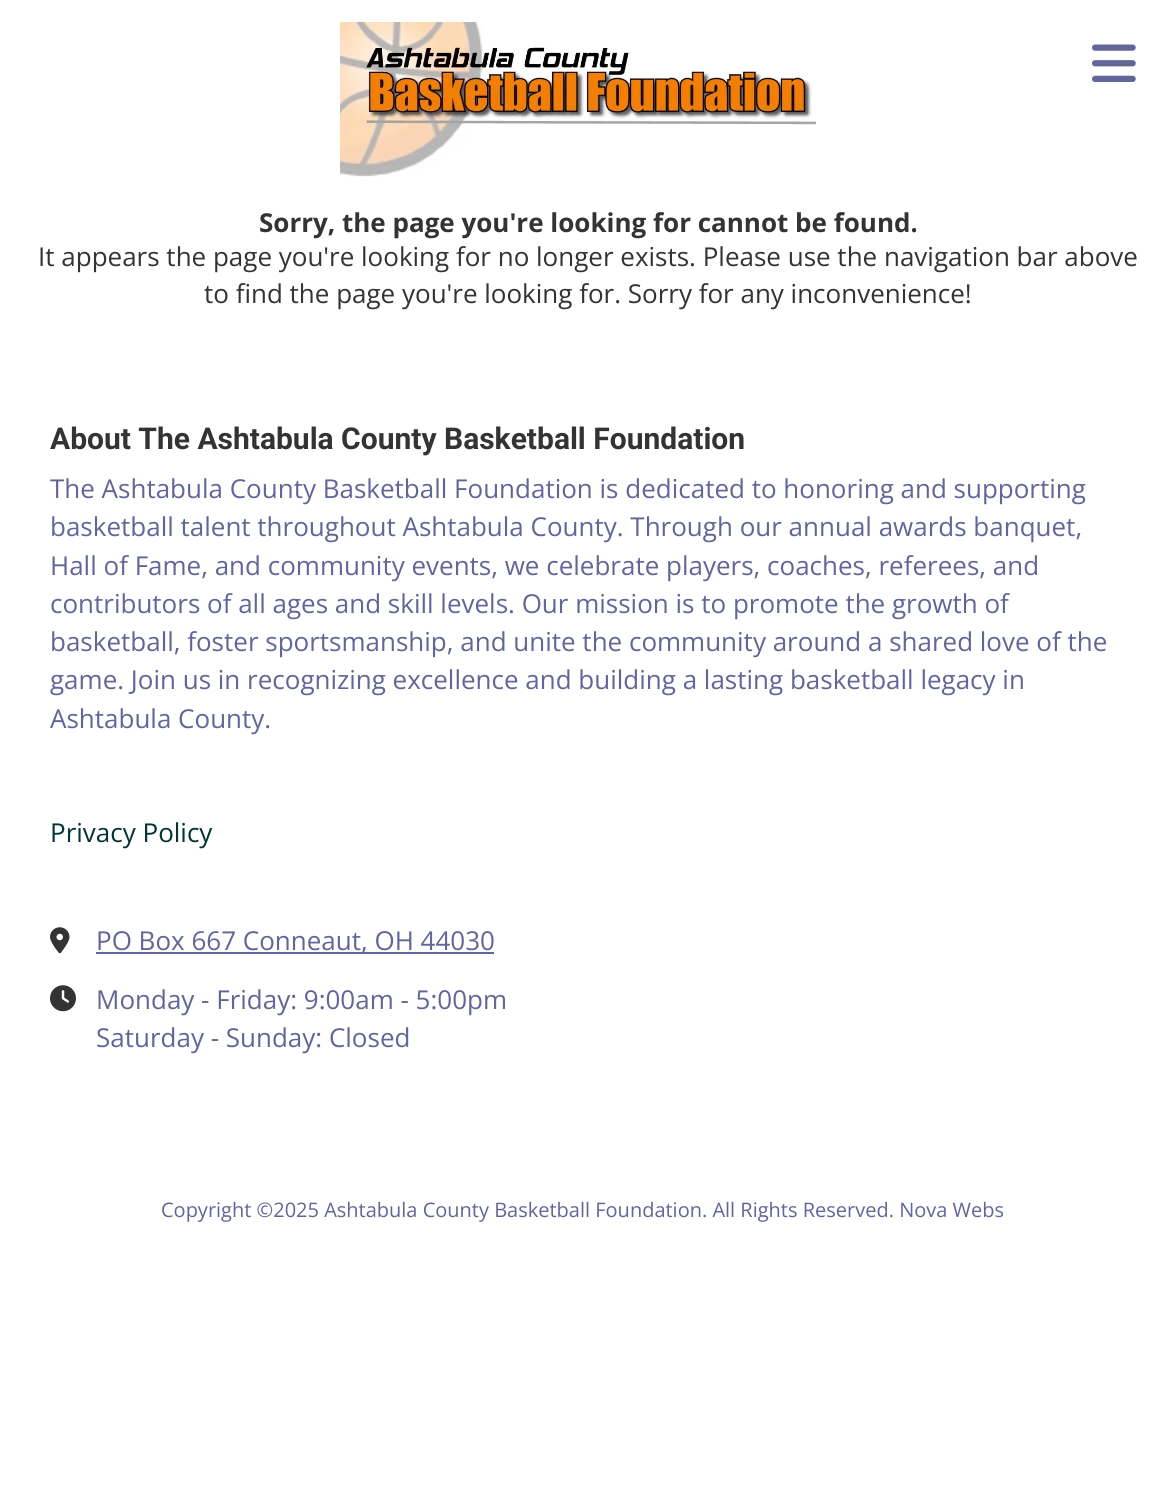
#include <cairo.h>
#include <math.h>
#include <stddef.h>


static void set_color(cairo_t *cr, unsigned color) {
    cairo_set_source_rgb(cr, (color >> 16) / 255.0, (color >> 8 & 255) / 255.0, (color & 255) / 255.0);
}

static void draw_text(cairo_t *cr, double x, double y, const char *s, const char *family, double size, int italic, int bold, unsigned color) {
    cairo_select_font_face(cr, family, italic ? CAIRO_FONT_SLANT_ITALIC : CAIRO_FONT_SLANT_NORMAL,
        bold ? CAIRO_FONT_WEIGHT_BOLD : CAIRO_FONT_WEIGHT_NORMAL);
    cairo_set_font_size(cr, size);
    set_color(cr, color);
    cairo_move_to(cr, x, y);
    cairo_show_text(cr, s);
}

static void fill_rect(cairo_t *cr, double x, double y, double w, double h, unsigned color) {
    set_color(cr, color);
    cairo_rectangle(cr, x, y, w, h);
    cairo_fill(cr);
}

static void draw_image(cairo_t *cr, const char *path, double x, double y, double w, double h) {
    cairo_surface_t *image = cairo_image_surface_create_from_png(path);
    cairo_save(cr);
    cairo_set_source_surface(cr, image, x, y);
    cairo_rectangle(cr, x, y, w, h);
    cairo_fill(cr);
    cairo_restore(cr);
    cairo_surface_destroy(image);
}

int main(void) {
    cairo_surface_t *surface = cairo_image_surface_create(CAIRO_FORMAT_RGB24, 1175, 1507);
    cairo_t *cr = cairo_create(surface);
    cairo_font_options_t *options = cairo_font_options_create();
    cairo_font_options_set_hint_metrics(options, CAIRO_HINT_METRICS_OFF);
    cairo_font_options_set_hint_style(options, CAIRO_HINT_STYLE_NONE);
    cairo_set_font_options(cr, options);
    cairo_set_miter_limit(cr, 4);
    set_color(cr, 0xFFFFFF);
    cairo_paint(cr);
    draw_image(cr, "assets/img1.png", 340, 22, 476, 155);
    draw_image(cr, "assets/img2.png", 1092, 44, 44, 38);
    draw_text(cr, 259, 232, "Sorry, the page you're looking for cannot be found.", "Open Sans", 26, 0, 1, 0x333333);
    draw_text(cr, 38, 266, "It appears the page you're looking for no longer exists. Please use the navigation bar above", "Open Sans", 26, 0, 0, 0x333333);
    draw_text(cr, 204, 303, "to find the page you're looking for. Sorry for any inconvenience!", "Open Sans", 26, 0, 0, 0x333333);
    draw_text(cr, 50, 449, "About The Ashtabula County Basketball Foundation", "Roboto", 30, 0, 1, 0x333333);
    draw_text(cr, 50, 498, "The Ashtabula County Basketball Foundation is dedicated to honoring and supporting", "Open Sans", 26, 0, 0, 0x616598);
    draw_text(cr, 50, 536, "basketball talent throughout Ashtabula County. Through our annual awards banquet,", "Open Sans", 26, 0, 0, 0x616598);
    draw_text(cr, 50, 575, "Hall of Fame, and community events, we celebrate players, coaches, referees, and", "Open Sans", 26, 0, 0, 0x616598);
    draw_text(cr, 50, 613, "contributors of all ages and skill levels. Our mission is to promote the growth of", "Open Sans", 26, 0, 0, 0x616598);
    draw_text(cr, 50, 651, "basketball, foster sportsmanship, and unite the community around a shared love of the", "Open Sans", 26, 0, 0, 0x616598);
    draw_text(cr, 50, 689, "game. Join us in recognizing excellence and building a lasting basketball legacy in", "Open Sans", 26, 0, 0, 0x616598);
    draw_text(cr, 50, 728, "Ashtabula County.", "Open Sans", 26, 0, 0, 0x616598);
    draw_text(cr, 50, 842, "Privacy Policy", "Open Sans", 26, 0, 0, 0x033333);
    draw_image(cr, "assets/img3.png", 50, 927, 20, 27);
    fill_rect(cr, 96, 952, 398, 2, 0x616598);
    draw_text(cr, 96, 950, "PO Box 667 Conneaut, OH 44030", "Open Sans", 26, 0, 0, 0x616598);
    draw_image(cr, "assets/img4.png", 50, 985, 26, 27);
    draw_text(cr, 96, 1009, "Monday - Friday: 9:00am - 5:00pm", "Open Sans", 26, 0, 0, 0x616598);
    draw_text(cr, 96, 1047, "Saturday - Sunday: Closed", "Open Sans", 26, 0, 0, 0x616598);
    draw_text(cr, 161, 1217, "Copyright ©2025 Ashtabula County Basketball Foundation. All Rights Reserved. Nova Webs", "Open Sans", 20, 0, 0, 0x616598);
    cairo_surface_write_to_png(surface, "output.png");
    cairo_font_options_destroy(options);
    cairo_destroy(cr);
    cairo_surface_destroy(surface);
    return 0;
}
